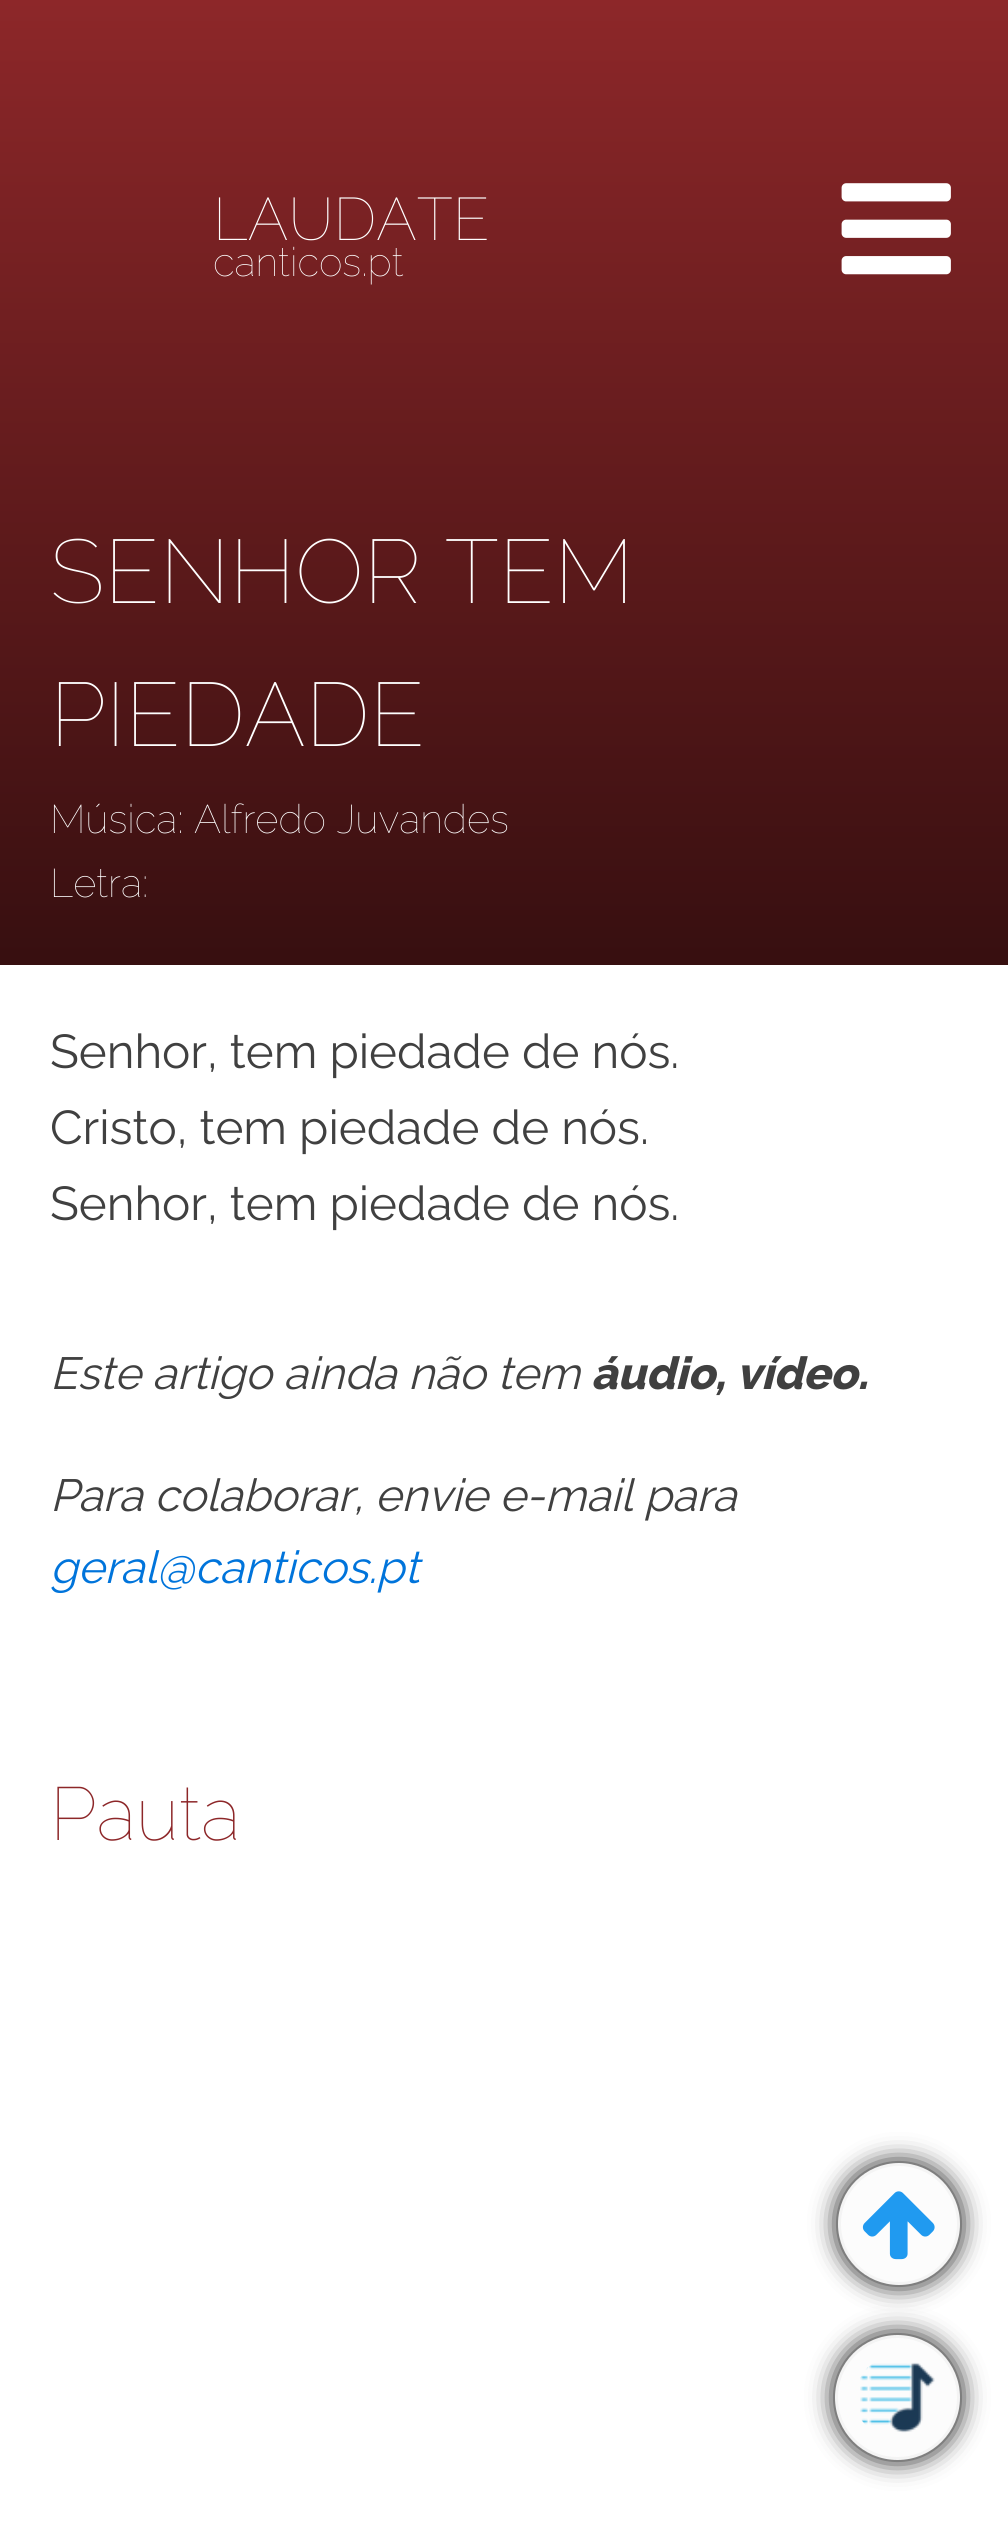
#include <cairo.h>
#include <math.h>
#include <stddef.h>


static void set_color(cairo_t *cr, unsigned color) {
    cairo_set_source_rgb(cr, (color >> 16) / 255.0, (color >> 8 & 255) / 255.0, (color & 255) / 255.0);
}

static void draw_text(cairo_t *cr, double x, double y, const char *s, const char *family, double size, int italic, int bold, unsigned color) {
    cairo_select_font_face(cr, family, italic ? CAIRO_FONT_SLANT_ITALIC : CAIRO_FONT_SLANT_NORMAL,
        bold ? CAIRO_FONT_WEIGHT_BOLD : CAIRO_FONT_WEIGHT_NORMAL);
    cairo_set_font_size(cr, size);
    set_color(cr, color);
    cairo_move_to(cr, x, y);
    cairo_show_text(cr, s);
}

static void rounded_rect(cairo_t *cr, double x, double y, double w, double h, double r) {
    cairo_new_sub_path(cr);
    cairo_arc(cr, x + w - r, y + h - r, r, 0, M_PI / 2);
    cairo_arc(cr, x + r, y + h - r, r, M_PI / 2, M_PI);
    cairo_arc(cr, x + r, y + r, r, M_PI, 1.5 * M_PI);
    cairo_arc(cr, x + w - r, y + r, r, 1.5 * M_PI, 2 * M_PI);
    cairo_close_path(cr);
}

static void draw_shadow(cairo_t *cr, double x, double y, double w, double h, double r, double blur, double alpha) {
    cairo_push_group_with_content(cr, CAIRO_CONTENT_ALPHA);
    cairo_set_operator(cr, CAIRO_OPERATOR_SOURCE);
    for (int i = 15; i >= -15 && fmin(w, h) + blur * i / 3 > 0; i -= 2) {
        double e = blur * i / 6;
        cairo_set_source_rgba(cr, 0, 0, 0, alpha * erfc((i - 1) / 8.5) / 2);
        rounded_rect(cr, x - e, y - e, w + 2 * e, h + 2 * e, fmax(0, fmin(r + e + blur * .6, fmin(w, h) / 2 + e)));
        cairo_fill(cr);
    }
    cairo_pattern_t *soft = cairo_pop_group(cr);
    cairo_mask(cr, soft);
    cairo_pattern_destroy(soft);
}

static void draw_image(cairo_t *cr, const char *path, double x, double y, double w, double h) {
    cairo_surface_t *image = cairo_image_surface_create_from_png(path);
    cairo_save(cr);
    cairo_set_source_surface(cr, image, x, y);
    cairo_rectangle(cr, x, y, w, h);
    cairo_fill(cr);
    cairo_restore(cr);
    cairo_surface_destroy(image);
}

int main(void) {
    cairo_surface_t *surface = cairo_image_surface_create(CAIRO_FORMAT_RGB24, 1008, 2534);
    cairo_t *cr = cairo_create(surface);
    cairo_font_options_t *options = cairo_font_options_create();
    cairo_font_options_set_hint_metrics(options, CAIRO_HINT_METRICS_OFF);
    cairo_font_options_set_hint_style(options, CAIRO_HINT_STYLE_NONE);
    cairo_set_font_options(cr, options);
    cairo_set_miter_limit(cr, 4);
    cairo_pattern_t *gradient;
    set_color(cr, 0xFFFFFF);
    cairo_paint(cr);
    gradient = cairo_pattern_create_linear(505, 0, 505, 965);
    cairo_pattern_add_color_stop_rgba(gradient, 0, 0.553, 0.153, 0.161, 1);
    cairo_pattern_add_color_stop_rgba(gradient, 1, 0.216, 0.059, 0.063, 1);
    cairo_set_source(cr, gradient);
    cairo_pattern_destroy(gradient);
    cairo_rectangle(cr, 0, 0, 1008, 965);
    cairo_fill(cr);
    draw_text(cr, 213, 240, "LAUDATE", "Raleway Thin", 60, 0, 0, 0xFFFFFF);
    draw_text(cr, 213, 276, "canticos.pt", "Raleway Thin", 40, 0, 0, 0xFFFFFF);
    draw_image(cr, "assets/img1.png", 841, 183, 110, 92);
    draw_text(cr, 50, 603, "SENHOR TEM", "Raleway Thin", 90, 0, 0, 0xFFFFFF);
    draw_text(cr, 50, 746, "PIEDADE", "Raleway Thin", 90, 0, 0, 0xFFFFFF);
    draw_text(cr, 50, 833, "Música: Alfredo Juvandes", "Raleway Thin", 40, 0, 0, 0xFFFFFF);
    draw_text(cr, 50, 897, "Letra:", "Raleway Thin", 40, 0, 0, 0xFFFFFF);
    draw_text(cr, 50, 1068, "Senhor, tem piedade de nós.", "Raleway", 47.5, 0, 0, 0x404040);
    draw_text(cr, 50, 1144, "Cristo, tem piedade de nós.", "Raleway", 47.5, 0, 0, 0x404040);
    draw_text(cr, 50, 1220, "Senhor, tem piedade de nós.", "Raleway", 47.5, 0, 0, 0x404040);
    draw_text(cr, 50, 1389, "Este artigo ainda não tem", "Raleway", 45, 1, 0, 0x404040);
    draw_text(cr, 591, 1389, "áudio, vídeo.", "Raleway ExtraBold", 45, 1, 0, 0x404040);
    draw_text(cr, 50, 1511, "Para colaborar, envie e-mail para", "Raleway", 45, 1, 0, 0x404040);
    draw_text(cr, 50, 1583, "geral@canticos.pt", "Raleway", 45, 1, 0, 0x0074DB);
    draw_text(cr, 50, 1840, "Pauta", "Raleway Thin", 75, 0, 0, 0x8D2729);
    set_color(cr, 0x000000);
    draw_shadow(cr, 838, 2163, 122, 122, 61, 12.5, 1);
    set_color(cr, 0xFCFCFC);
    cairo_arc(cr, 899, 2224, 59.5, 0, 2 * M_PI);
    cairo_fill_preserve(cr);
    set_color(cr, 0xF4F4F4);
    cairo_set_line_width(cr, 3);
    cairo_stroke(cr);
    draw_image(cr, "assets/img2.png", 862, 2191, 73, 69);
    set_color(cr, 0x000000);
    draw_shadow(cr, 835, 2335, 125, 125, 62.5, 12.5, 1);
    set_color(cr, 0xFCFCFC);
    cairo_arc(cr, 897.5, 2397.5, 61, 0, 2 * M_PI);
    cairo_fill_preserve(cr);
    set_color(cr, 0xF4F4F4);
    cairo_stroke(cr);
    draw_image(cr, "assets/img3.png", 860, 2362, 75, 71);
    cairo_surface_write_to_png(surface, "output.png");
    cairo_font_options_destroy(options);
    cairo_destroy(cr);
    cairo_surface_destroy(surface);
    return 0;
}
